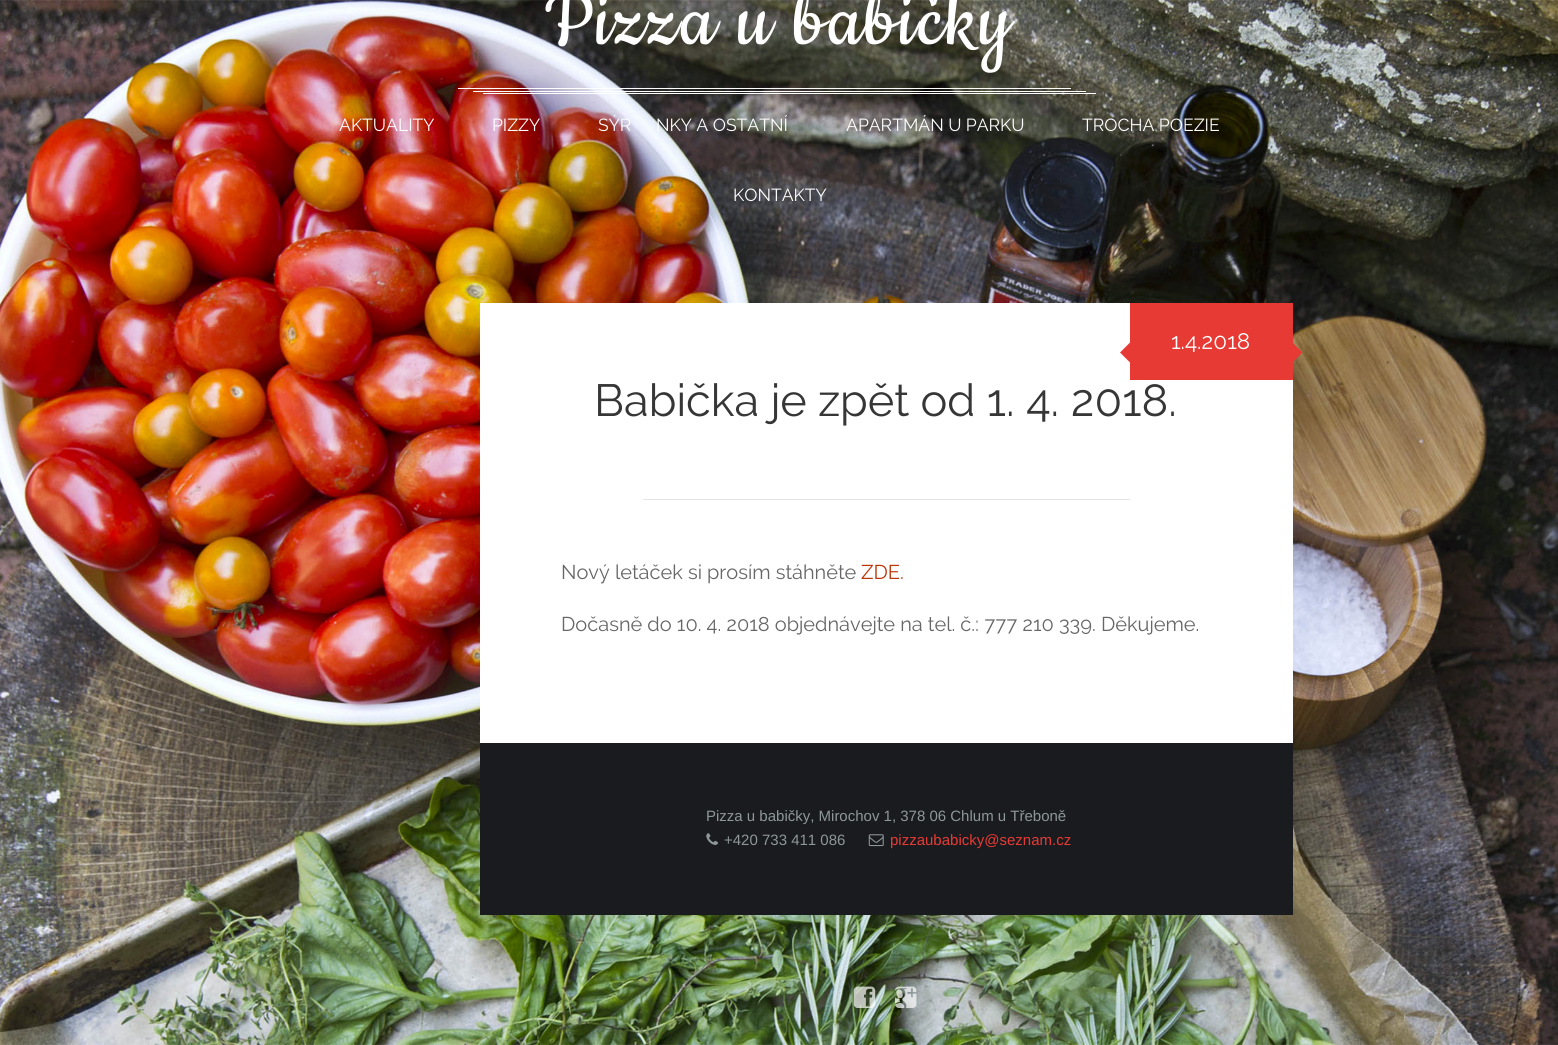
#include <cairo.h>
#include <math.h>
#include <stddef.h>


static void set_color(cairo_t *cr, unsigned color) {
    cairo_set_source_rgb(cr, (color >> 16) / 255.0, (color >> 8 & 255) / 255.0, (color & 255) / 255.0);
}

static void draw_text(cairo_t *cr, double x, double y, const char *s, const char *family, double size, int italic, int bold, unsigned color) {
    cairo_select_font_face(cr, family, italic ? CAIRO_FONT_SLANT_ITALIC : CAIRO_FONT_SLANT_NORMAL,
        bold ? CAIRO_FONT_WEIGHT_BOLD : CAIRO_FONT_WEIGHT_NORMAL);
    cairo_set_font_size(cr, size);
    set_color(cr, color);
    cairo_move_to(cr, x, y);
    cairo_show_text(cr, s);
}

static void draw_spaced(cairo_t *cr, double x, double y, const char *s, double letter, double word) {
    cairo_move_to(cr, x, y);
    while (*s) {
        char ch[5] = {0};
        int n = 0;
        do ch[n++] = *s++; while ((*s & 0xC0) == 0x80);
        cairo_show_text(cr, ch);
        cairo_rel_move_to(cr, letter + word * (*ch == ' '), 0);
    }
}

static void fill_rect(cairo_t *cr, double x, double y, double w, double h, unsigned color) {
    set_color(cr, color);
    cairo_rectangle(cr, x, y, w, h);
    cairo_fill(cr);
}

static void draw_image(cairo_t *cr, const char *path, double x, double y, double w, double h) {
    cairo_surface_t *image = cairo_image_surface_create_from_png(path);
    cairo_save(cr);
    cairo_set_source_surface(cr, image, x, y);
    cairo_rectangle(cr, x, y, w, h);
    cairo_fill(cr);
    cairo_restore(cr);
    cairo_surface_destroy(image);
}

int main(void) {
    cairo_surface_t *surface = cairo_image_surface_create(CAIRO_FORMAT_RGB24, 1558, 1045);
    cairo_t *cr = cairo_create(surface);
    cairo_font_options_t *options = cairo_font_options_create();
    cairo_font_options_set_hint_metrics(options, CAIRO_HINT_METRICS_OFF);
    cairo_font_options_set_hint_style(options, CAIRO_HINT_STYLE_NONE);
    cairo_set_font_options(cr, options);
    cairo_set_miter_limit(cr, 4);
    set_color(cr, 0xFFFFFF);
    cairo_paint(cr);
    draw_image(cr, "assets/img1.png", 0, 0, 1558, 1045);
    fill_rect(cr, 473, 91, 613, 1, 0xFFFFFF);
    cairo_select_font_face(cr, "Cookie", CAIRO_FONT_SLANT_NORMAL, CAIRO_FONT_WEIGHT_NORMAL);
    cairo_set_font_size(cr, 90);
    draw_spaced(cr, 544, 44, "Pizza u babičky", 2.5, 0);
    fill_rect(cr, 458, 88, 613, 1, 0xFFFFFF);
    fill_rect(cr, 483, 93, 613, 1, 0xFFFFFF);
    draw_text(cr, 339, 131, "AKTUALITY", "Raleway", 17.5, 0, 0, 0xFFFFFF);
    draw_text(cr, 492, 131, "PIZZY", "Raleway", 17.5, 0, 0, 0xFFFFFF);
    draw_text(cr, 598, 131, "SÝR", "Raleway", 17.5, 0, 0, 0xFFFFFF);
    draw_text(cr, 656, 131, "NKY A OSTATNÍ", "Raleway", 17.5, 0, 0, 0xFFFFFF);
    draw_text(cr, 846, 131, "APARTMÁN U PARKU", "Raleway", 17.5, 0, 0, 0xFFFFFF);
    draw_text(cr, 1082, 131, "TROCHA POEZIE", "Raleway", 17.5, 0, 0, 0xFFFFFF);
    draw_text(cr, 733, 201, "KONTAKTY", "Raleway", 17.5, 0, 0, 0xFFFFFF);
    fill_rect(cr, 480, 303, 813, 440, 0xFFFFFF);
    set_color(cr, 0xE83A34);
    cairo_new_path(cr);
    cairo_move_to(cr, 1130, 342.5);
    cairo_line_to(cr, 1130, 362.5);
    cairo_line_to(cr, 1120, 352.5);
    cairo_close_path(cr);
    cairo_fill(cr);
    cairo_new_path(cr);
    cairo_move_to(cr, 1292.5, 362.5);
    cairo_line_to(cr, 1292.5, 342.5);
    cairo_line_to(cr, 1302.5, 352.5);
    cairo_close_path(cr);
    cairo_fill(cr);
    fill_rect(cr, 1130, 303, 163, 77, 0xE83A34);
    draw_text(cr, 1171, 349, "1.4.2018", "Raleway", 22.5, 0, 0, 0xFFFFFF);
    draw_text(cr, 594, 416, "Babička je zpět od 1. 4. 2018.", "Raleway", 45, 0, 0, 0x363636);
    fill_rect(cr, 643, 499, 487, 1, 0xE5E5E5);
    draw_text(cr, 561, 579, "Nový letáček si prosím stáhněte", "Raleway", 20, 0, 0, 0x666666);
    draw_text(cr, 861, 579, "ZDE.", "Raleway", 20, 0, 0, 0xBC360A);
    draw_text(cr, 561, 631, "Dočasně do 10. 4. 2018 objednávejte na tel. č.: 777 210 339. Děkujeme.", "Raleway", 20, 0, 0, 0x666666);
    fill_rect(cr, 480, 743, 813, 172, 0x191B1F);
    draw_text(cr, 706, 821, "Pizza u babičky, Mirochov 1, 378 06 Chlum u Třeboně", "Liberation Sans", 15, 0, 0, 0x8E9798);
    draw_image(cr, "assets/img2.png", 706, 833, 12, 12);
    draw_text(cr, 724, 845, "+420 733 411 086", "Liberation Sans", 15, 0, 0, 0x8E9798);
    draw_image(cr, "assets/img3.png", 868, 834, 16, 13);
    draw_text(cr, 890, 845, "pizzaubabicky@seznam.cz", "Liberation Sans", 15, 0, 0, 0xE83A34);
    draw_image(cr, "assets/img4.png", 853, 986, 23, 22);
    draw_image(cr, "assets/img5.png", 895, 986, 22, 22);
    cairo_surface_write_to_png(surface, "output.png");
    cairo_font_options_destroy(options);
    cairo_destroy(cr);
    cairo_surface_destroy(surface);
    return 0;
}
